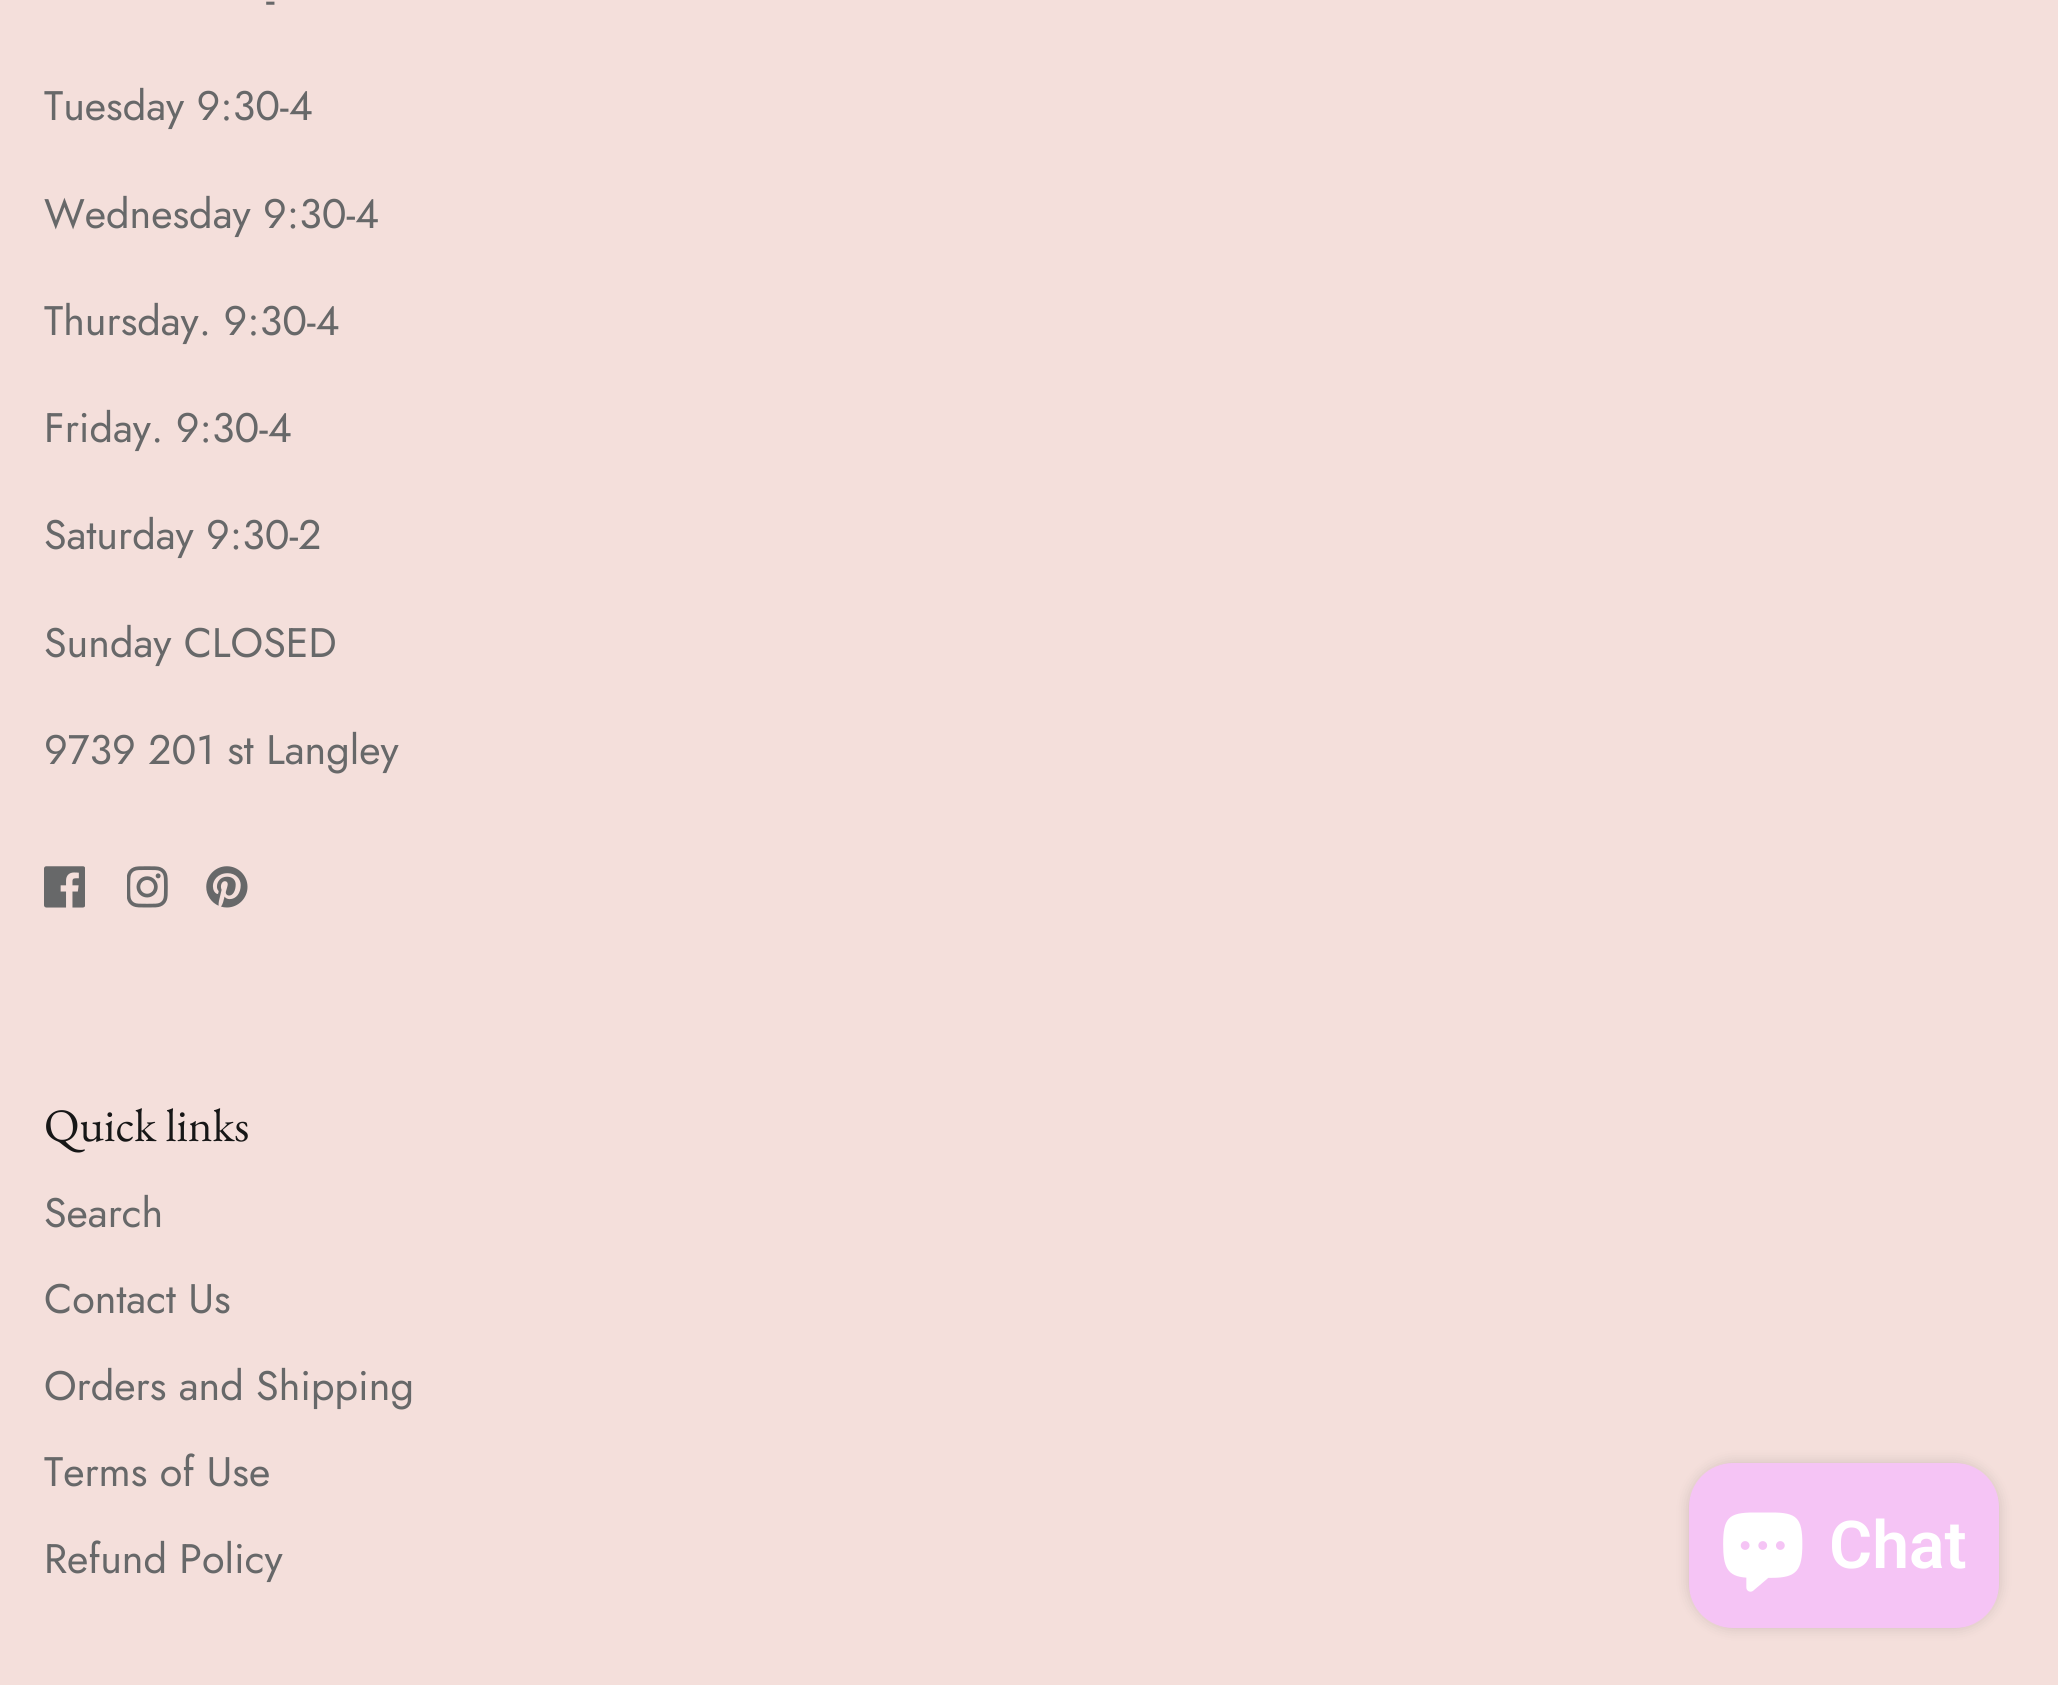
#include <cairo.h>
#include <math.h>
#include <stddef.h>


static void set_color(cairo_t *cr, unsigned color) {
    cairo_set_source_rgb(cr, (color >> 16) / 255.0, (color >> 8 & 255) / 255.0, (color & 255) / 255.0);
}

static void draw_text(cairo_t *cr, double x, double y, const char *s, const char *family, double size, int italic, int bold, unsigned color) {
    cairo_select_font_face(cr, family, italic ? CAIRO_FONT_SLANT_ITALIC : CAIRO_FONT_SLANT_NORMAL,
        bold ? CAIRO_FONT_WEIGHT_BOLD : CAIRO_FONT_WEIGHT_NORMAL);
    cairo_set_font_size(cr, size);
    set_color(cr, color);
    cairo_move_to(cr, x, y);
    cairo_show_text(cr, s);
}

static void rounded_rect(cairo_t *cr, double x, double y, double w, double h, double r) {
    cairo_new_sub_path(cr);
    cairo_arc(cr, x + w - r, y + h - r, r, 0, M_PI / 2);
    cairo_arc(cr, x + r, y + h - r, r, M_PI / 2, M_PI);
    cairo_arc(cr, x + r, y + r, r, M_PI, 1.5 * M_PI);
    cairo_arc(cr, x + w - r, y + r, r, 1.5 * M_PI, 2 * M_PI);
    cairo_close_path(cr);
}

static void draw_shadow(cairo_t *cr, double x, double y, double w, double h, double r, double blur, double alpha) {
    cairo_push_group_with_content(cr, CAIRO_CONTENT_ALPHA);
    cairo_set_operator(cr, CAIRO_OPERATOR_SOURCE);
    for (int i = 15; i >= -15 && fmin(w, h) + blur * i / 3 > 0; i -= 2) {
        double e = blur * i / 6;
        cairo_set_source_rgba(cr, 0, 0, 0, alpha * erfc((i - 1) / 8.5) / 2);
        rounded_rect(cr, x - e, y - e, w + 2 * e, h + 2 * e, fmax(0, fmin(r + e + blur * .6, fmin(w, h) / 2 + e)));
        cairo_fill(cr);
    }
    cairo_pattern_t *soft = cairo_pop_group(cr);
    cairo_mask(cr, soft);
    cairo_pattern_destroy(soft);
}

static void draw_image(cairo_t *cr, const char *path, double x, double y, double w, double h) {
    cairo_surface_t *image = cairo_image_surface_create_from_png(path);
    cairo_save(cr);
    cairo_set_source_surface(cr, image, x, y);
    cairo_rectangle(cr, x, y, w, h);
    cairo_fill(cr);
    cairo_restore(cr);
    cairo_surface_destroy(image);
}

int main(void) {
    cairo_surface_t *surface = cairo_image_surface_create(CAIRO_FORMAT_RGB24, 2058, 1685);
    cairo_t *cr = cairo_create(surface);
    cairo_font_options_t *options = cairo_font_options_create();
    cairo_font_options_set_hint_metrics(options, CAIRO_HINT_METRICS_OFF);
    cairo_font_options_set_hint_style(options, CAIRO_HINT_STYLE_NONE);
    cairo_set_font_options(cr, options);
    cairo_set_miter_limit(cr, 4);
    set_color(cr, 0xF4DFDB);
    cairo_paint(cr);
    draw_text(cr, 266, 13, "-", "Jost", 41.25, 0, 0, 0x676869);
    draw_text(cr, 44, 120, "Tuesday 9:30-4", "Jost", 41.25, 0, 0, 0x676869);
    draw_text(cr, 44, 228, "Wednesday 9:30-4", "Jost", 41.25, 0, 0, 0x676869);
    draw_text(cr, 44, 335, "Thursday. 9:30-4", "Jost", 41.25, 0, 0, 0x676869);
    draw_text(cr, 44, 442, "Friday. 9:30-4", "Jost", 41.25, 0, 0, 0x676869);
    draw_text(cr, 44, 549, "Saturday 9:30-2", "Jost", 41.25, 0, 0, 0x676869);
    draw_text(cr, 44, 657, "Sunday CLOSED", "Jost", 41.25, 0, 0, 0x676869);
    draw_text(cr, 44, 764, "9739 201 st Langley", "Jost", 41.25, 0, 0, 0x676869);
    draw_image(cr, "assets/img1.png", 44, 866, 41, 42);
    draw_image(cr, "assets/img2.png", 127, 866, 41, 42);
    draw_image(cr, "assets/img3.png", 206, 866, 42, 42);
    draw_text(cr, 44, 1141, "Quick links", "EB Garamond", 46.5, 0, 0, 0x171717);
    draw_text(cr, 44, 1227, "Search", "Jost", 41.25, 0, 0, 0x676869);
    draw_text(cr, 44, 1313, "Contact Us", "Jost", 41.25, 0, 0, 0x676869);
    draw_text(cr, 44, 1400, "Orders and Shipping", "Jost", 41.25, 0, 0, 0x676869);
    draw_text(cr, 44, 1486, "Terms of Use", "Jost", 41.25, 0, 0, 0x676869);
    draw_text(cr, 44, 1573, "Refund Policy", "Jost", 41.25, 0, 0, 0x676869);
    set_color(cr, 0x000000);
    draw_shadow(cr, 1689, 1463, 310, 165, 44, 7, 0.15);
    set_color(cr, 0xF5C4F5);
    rounded_rect(cr, 1689, 1463, 310, 165, 44);
    cairo_fill(cr);
    draw_image(cr, "assets/img4.png", 1723, 1512, 80, 80);
    draw_text(cr, 1829, 1568, "Chat", "Roboto SemiBold", 66, 0, 0, 0xFFFFFF);
    cairo_surface_write_to_png(surface, "output.png");
    cairo_font_options_destroy(options);
    cairo_destroy(cr);
    cairo_surface_destroy(surface);
    return 0;
}
